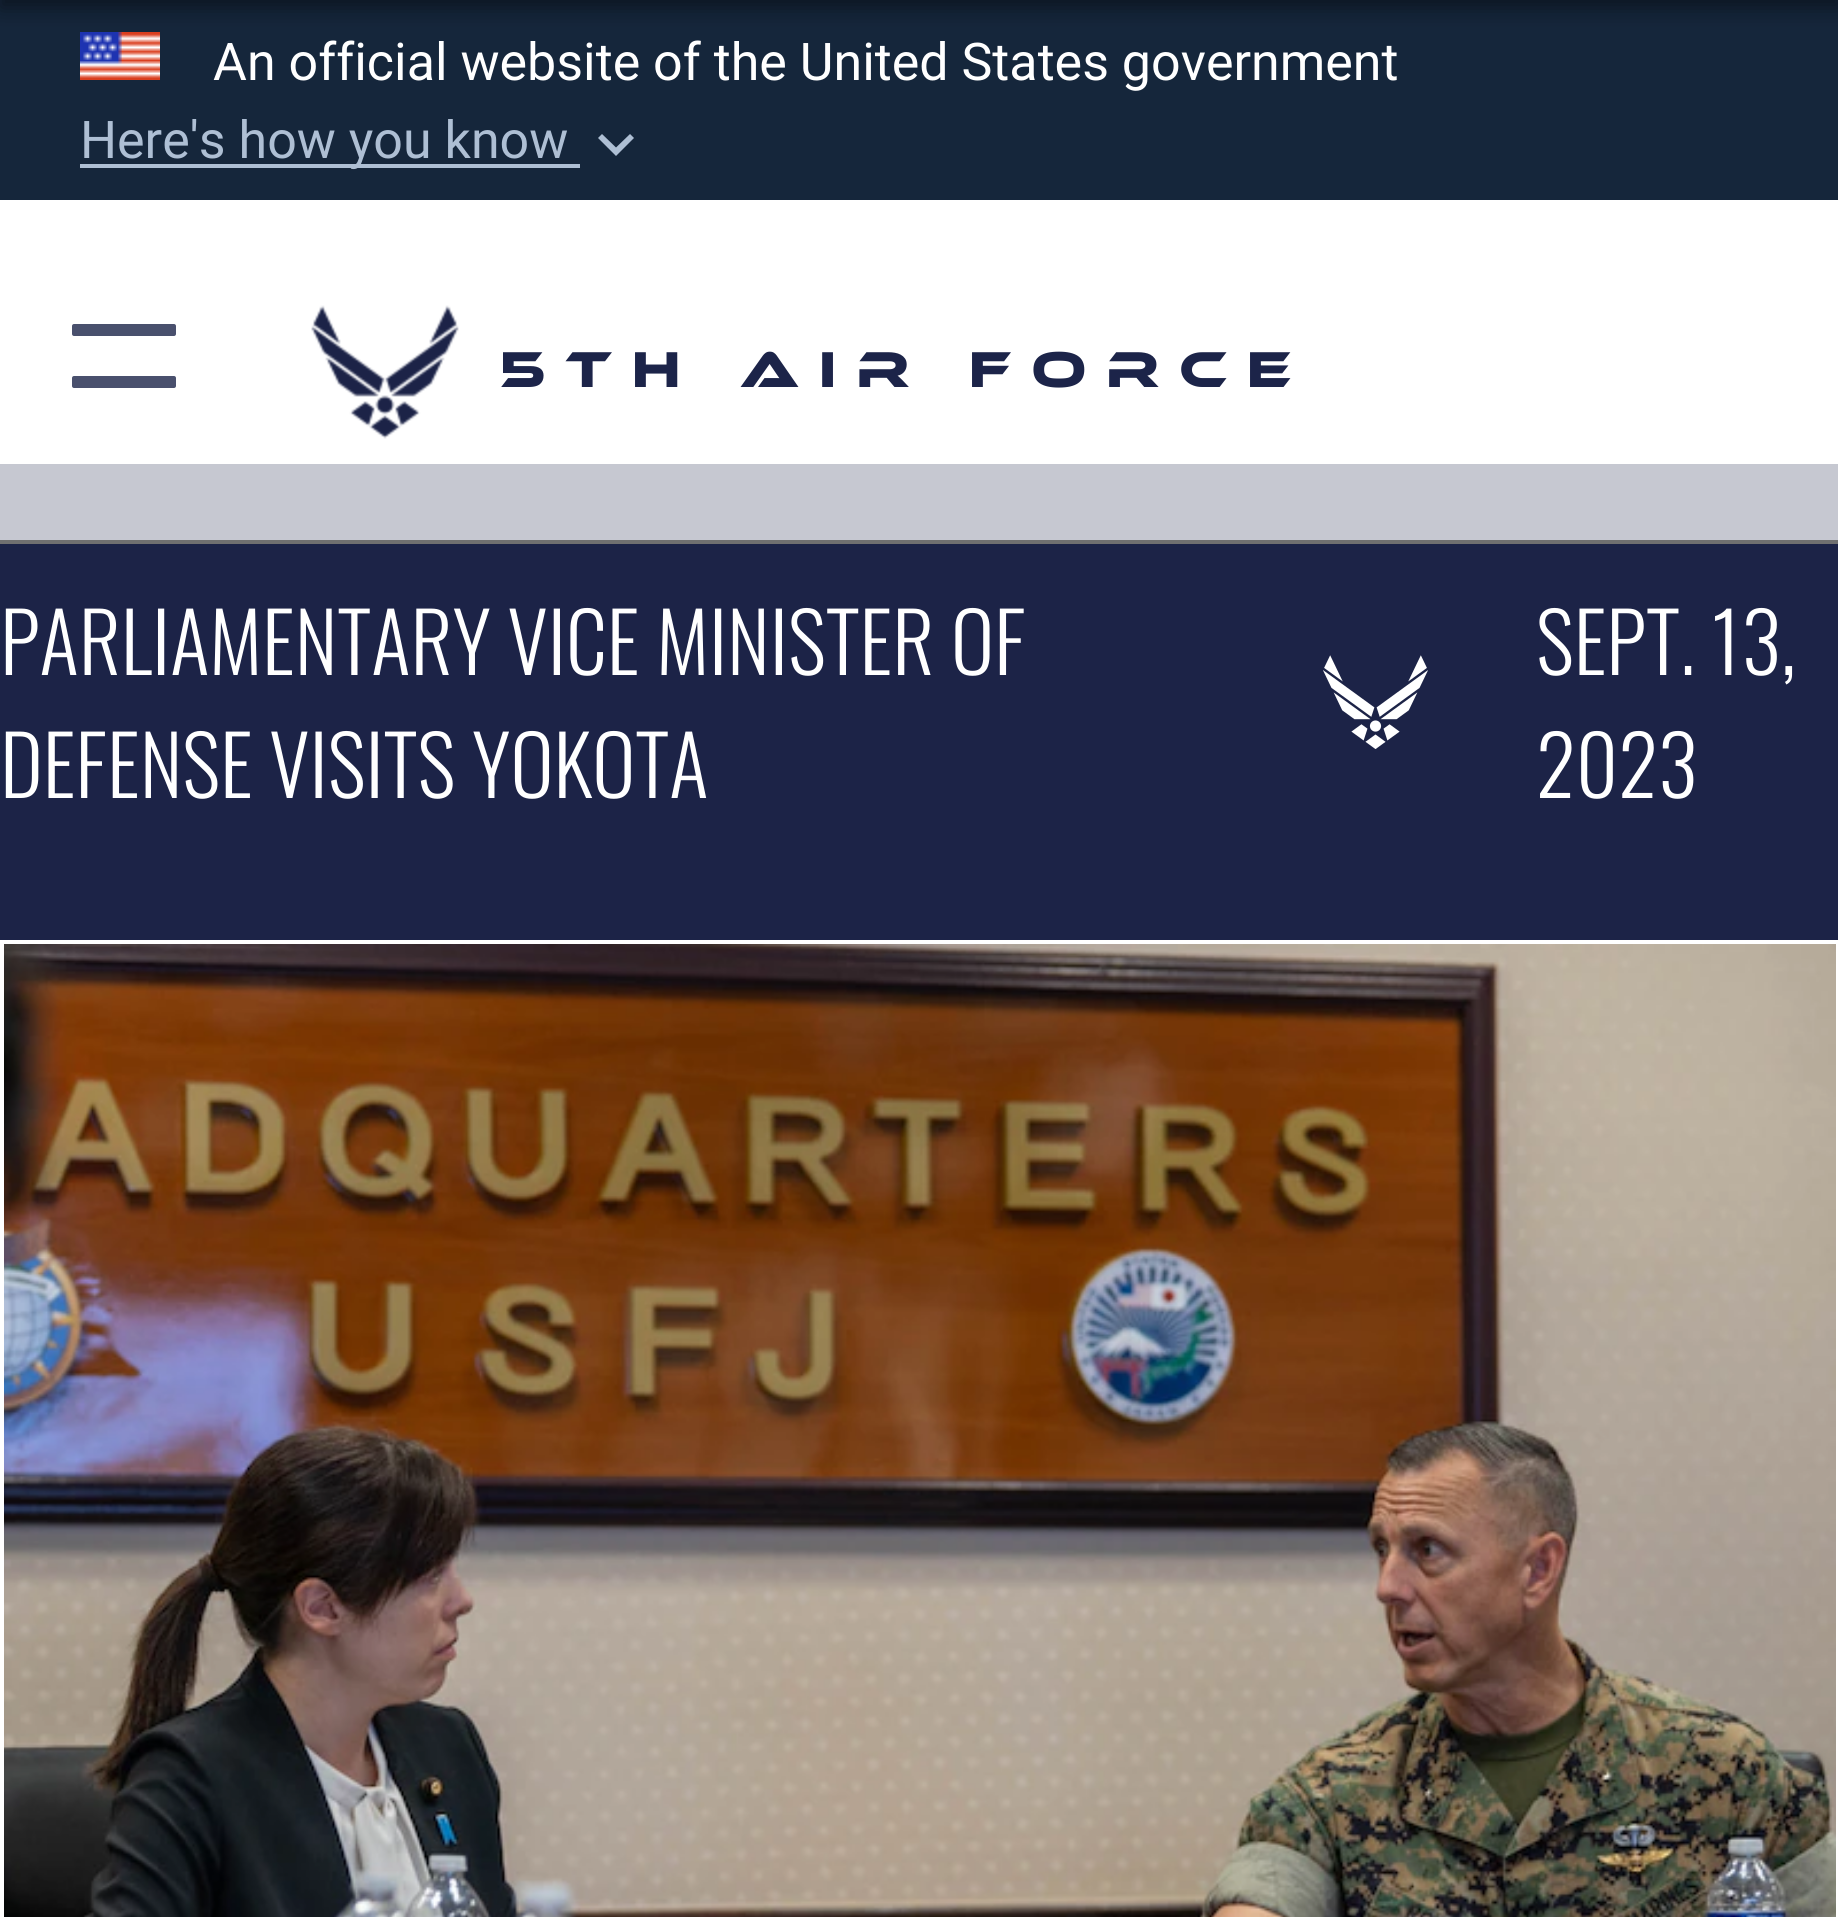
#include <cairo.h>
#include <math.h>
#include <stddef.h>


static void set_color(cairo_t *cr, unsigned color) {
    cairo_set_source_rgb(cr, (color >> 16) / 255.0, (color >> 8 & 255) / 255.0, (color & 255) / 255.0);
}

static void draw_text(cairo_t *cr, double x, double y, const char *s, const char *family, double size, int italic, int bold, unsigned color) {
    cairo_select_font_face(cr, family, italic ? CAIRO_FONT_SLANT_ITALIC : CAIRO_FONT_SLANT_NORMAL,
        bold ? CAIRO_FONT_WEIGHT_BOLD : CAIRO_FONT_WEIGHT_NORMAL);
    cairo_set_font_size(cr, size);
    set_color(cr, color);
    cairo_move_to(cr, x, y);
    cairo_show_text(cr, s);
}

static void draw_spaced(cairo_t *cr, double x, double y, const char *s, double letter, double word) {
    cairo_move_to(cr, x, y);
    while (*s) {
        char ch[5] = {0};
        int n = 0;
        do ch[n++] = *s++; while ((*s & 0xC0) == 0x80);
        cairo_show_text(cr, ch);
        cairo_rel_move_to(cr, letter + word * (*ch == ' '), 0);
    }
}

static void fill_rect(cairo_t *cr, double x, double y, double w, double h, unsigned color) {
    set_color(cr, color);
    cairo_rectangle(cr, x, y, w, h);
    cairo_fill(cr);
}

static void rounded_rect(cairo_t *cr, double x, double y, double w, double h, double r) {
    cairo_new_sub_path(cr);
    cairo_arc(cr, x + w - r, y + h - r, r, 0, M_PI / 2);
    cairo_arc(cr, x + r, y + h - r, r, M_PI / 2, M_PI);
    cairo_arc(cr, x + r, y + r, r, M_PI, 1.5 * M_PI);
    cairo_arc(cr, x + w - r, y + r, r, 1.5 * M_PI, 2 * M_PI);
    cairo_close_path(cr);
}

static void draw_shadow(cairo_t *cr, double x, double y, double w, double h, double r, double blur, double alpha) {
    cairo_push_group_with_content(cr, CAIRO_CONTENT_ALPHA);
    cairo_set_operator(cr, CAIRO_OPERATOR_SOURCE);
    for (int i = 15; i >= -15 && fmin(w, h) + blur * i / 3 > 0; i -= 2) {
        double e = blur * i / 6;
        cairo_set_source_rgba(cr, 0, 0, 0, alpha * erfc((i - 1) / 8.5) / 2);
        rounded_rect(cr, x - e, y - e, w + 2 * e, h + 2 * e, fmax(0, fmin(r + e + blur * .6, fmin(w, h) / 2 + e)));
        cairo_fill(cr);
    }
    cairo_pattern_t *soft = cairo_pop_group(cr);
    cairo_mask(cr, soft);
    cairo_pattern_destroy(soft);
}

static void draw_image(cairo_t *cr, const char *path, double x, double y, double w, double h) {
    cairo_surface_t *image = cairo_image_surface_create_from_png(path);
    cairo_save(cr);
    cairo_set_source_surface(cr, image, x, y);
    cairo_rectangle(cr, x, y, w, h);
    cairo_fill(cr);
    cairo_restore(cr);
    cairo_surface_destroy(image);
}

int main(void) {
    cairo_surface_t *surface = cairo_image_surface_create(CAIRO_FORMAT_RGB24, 1838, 1917);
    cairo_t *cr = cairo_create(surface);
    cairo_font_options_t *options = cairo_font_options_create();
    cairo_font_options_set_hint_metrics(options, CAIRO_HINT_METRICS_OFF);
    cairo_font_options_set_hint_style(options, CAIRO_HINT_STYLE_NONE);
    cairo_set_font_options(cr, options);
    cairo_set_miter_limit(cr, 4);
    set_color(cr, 0xFFFFFF);
    cairo_paint(cr);
    fill_rect(cr, 0, 0, 1838, 200, 0x15263B);
    draw_image(cr, "assets/img1.png", 80, 32, 80, 48);
    draw_text(cr, 213, 80, "An official website of the United States government", "Roboto", 52, 0, 0, 0xFFFFFF);
    fill_rect(cr, 80, 164, 500, 4, 0xAEBFD4);
    draw_text(cr, 80, 158, "Here's how you know", "Roboto", 52, 0, 0, 0xAEBFD4);
    cairo_new_path(cr);
    cairo_move_to(cr, 630, 134);
    cairo_line_to(cr, 616, 147.5);
    cairo_line_to(cr, 602, 134);
    cairo_line_to(cr, 598, 138);
    cairo_line_to(cr, 616, 156);
    cairo_line_to(cr, 634, 138);
    cairo_close_path(cr);
    cairo_fill(cr);
    set_color(cr, 0x020406);
    draw_shadow(cr, 0, -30, 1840, 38, 0, 10, 0.5);
    fill_rect(cr, 0, 540, 1838, 4, 0x707070);
    set_color(cr, 0x49506D);
    rounded_rect(cr, 72, 324, 104, 12, 2);
    cairo_fill(cr);
    rounded_rect(cr, 72, 376, 104, 12, 2);
    cairo_fill(cr);
    draw_image(cr, "assets/img2.png", 311, 305, 148, 134);
    cairo_select_font_face(cr, "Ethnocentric", CAIRO_FONT_SLANT_NORMAL, CAIRO_FONT_WEIGHT_NORMAL);
    set_color(cr, 0x1C2449);
    draw_spaced(cr, 499, 387, "5th Air Force", 19.75, 0);
    fill_rect(cr, 0, 544, 1838, 396, 0x1C2347);
    fill_rect(cr, 0, 464, 1838, 76, 0xC6C8D1);
    draw_text(cr, 0, 675, "PARLIAMENTARY VICE MINISTER OF", "Oswald Light", 82, 0, 0, 0xFFFFFF);
    draw_text(cr, 0, 798, "DEFENSE VISITS YOKOTA", "Oswald Light", 82, 0, 0, 0xFFFFFF);
    draw_image(cr, "assets/img3.png", 1323, 655, 105, 94);
    draw_text(cr, 1536, 675, "SEPT. 13,", "Oswald Light", 82, 0, 0, 0xFFFFFF);
    draw_text(cr, 1536, 798, "2023", "Oswald Light", 82, 0, 0, 0xFFFFFF);
    draw_image(cr, "assets/img4.png", 4, 944, 1832, 973);
    cairo_surface_write_to_png(surface, "output.png");
    cairo_font_options_destroy(options);
    cairo_destroy(cr);
    cairo_surface_destroy(surface);
    return 0;
}
